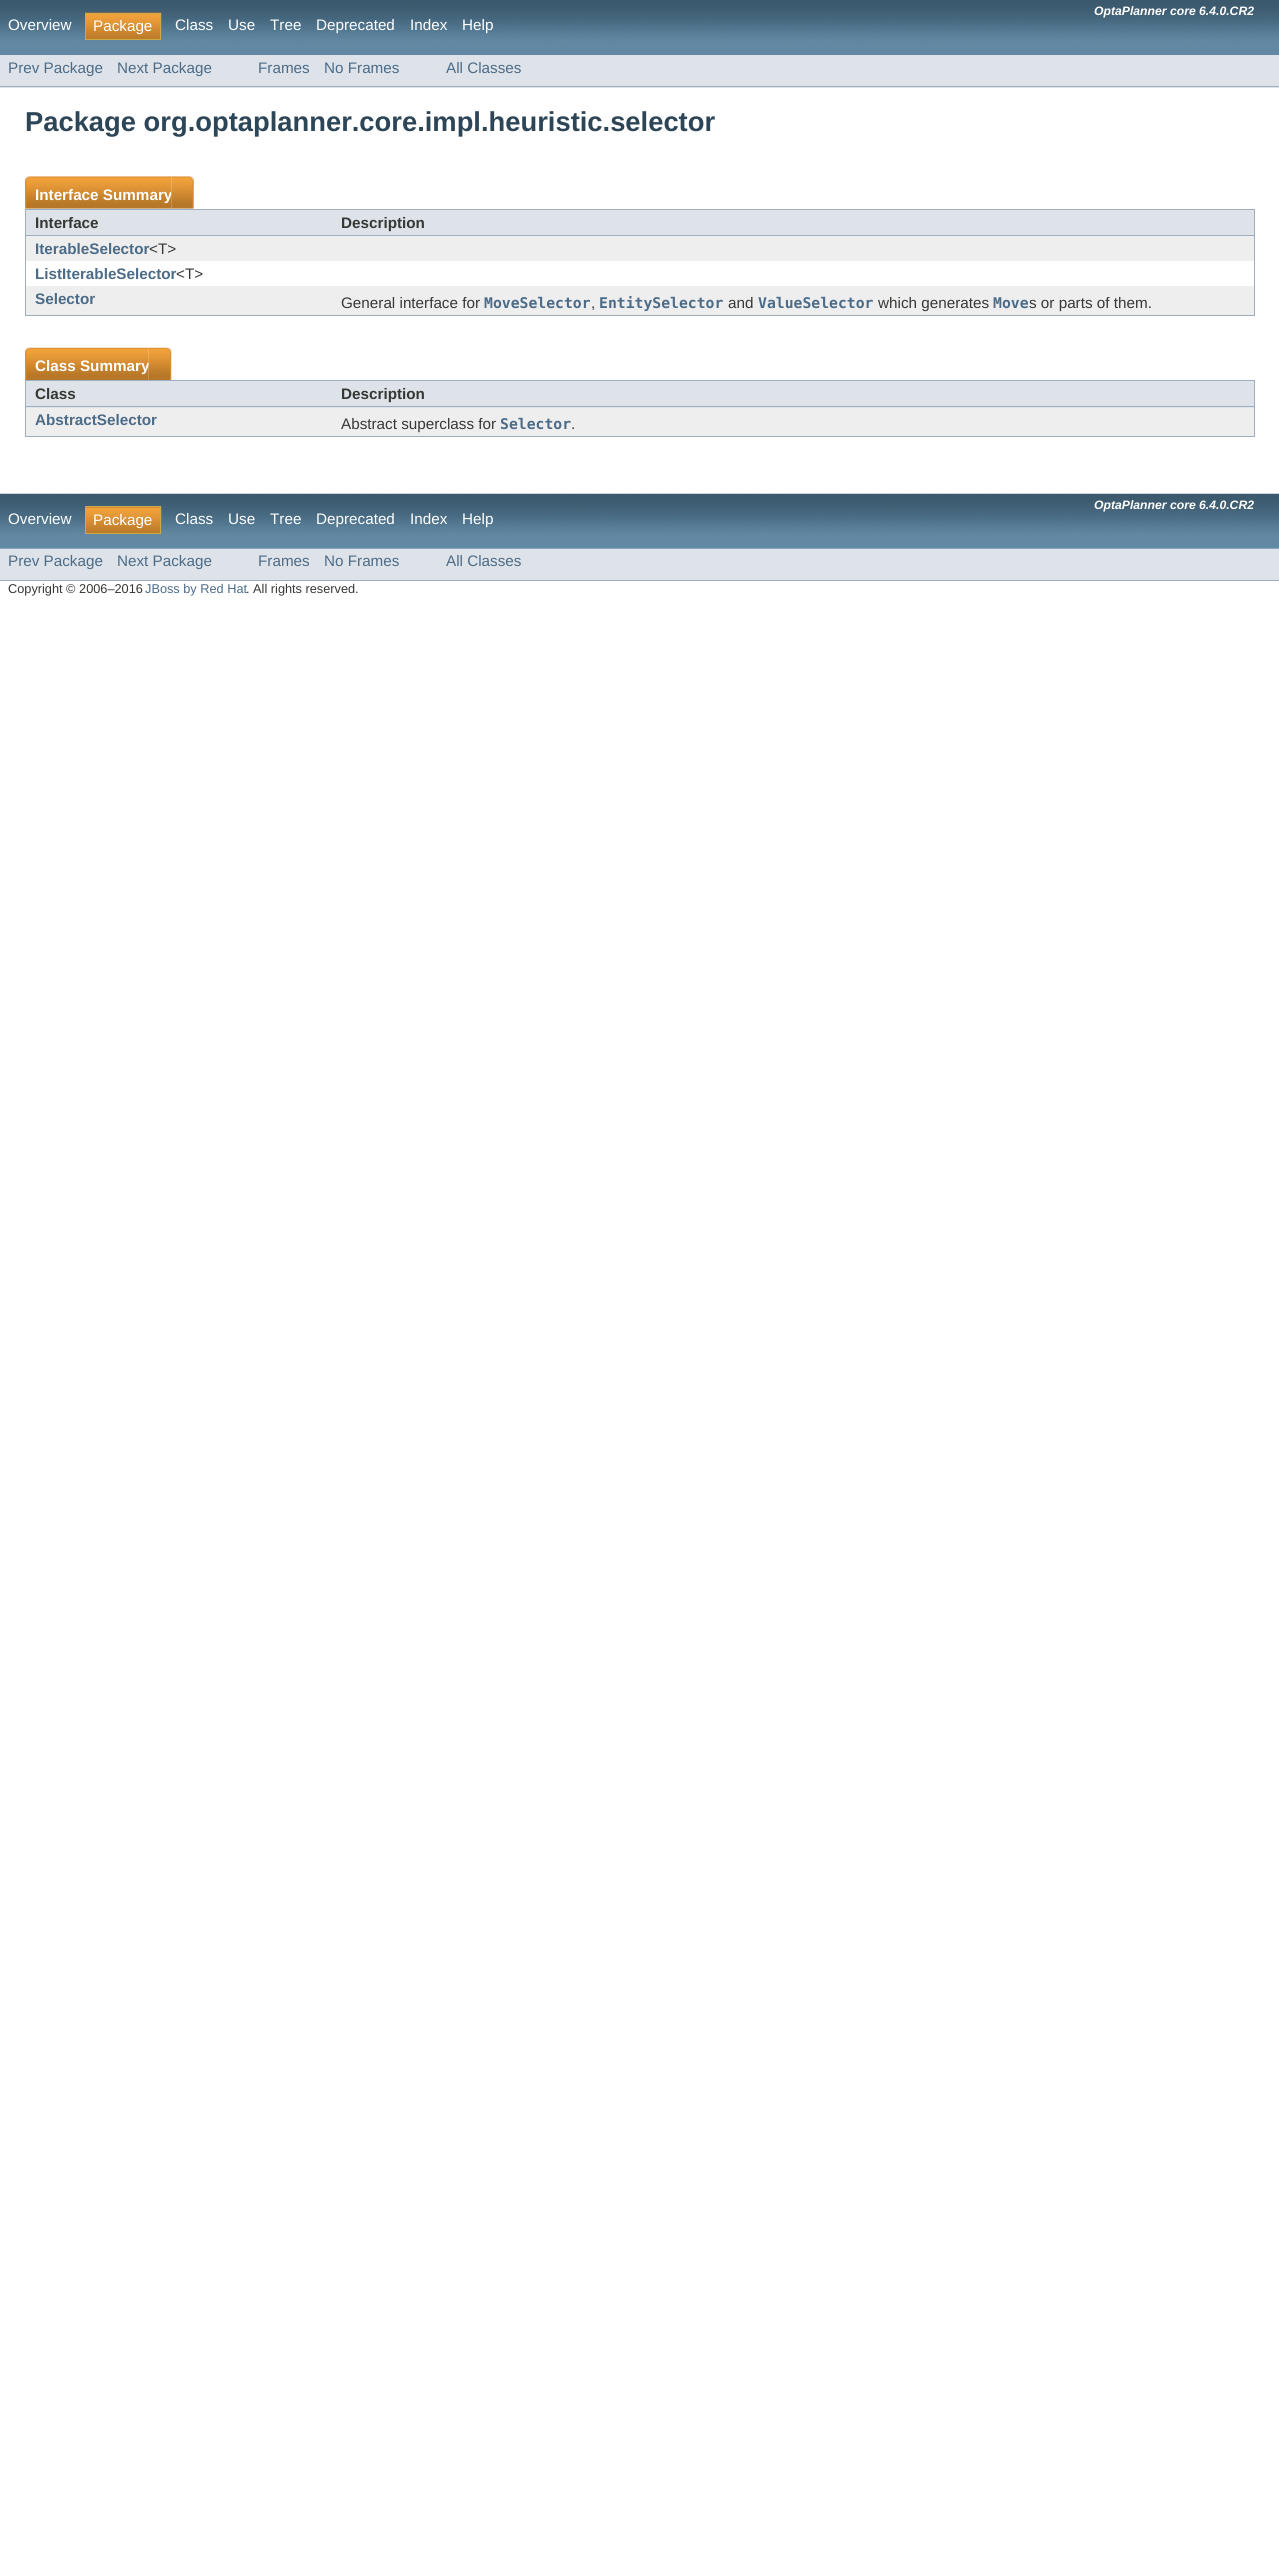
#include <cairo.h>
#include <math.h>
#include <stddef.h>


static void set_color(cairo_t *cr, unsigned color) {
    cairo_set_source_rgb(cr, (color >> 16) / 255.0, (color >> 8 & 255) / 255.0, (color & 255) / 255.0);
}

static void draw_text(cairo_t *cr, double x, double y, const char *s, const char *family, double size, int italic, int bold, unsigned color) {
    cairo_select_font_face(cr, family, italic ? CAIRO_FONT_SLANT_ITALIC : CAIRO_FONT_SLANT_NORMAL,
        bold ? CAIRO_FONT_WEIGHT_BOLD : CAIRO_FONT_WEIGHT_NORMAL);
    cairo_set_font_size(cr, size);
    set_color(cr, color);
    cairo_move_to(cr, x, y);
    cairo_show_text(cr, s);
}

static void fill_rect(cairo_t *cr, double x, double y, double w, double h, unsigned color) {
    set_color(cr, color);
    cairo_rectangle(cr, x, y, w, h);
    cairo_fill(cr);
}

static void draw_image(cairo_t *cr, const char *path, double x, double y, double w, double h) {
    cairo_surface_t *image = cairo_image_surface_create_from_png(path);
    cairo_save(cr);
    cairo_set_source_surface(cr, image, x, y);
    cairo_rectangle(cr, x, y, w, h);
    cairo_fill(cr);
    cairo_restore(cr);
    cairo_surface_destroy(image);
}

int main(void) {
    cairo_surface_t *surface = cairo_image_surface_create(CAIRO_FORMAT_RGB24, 1279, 2569);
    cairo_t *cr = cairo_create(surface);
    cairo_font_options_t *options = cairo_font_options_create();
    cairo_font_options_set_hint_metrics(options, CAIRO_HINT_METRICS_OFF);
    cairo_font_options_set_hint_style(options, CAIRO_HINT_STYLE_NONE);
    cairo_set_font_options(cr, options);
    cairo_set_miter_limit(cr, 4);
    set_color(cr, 0xFFFFFF);
    cairo_paint(cr);
    draw_image(cr, "assets/img1.png", 0, 0, 1279, 55);
    draw_text(cr, 1094, 15, "OptaPlanner core 6.4.0.CR2", "Liberation Sans", 12.2, 1, 1, 0xFFFFFF);
    draw_text(cr, 8, 30, "Overview", "Liberation Sans", 15.25, 0, 0, 0xFFFFFF);
    draw_image(cr, "assets/img2.png", 85, 12, 77, 28);
    cairo_rectangle(cr, 85.5, 13.5, 75, 26);
    set_color(cr, 0xC9AA44);
    cairo_set_line_width(cr, 1);
    cairo_stroke(cr);
    draw_text(cr, 93, 31, "Package", "Liberation Sans", 15.25, 0, 0, 0xFFFFFF);
    draw_text(cr, 175, 30, "Class", "Liberation Sans", 15.25, 0, 0, 0xFFFFFF);
    draw_text(cr, 228, 30, "Use", "Liberation Sans", 15.25, 0, 0, 0xFFFFFF);
    draw_text(cr, 270, 30, "Tree", "Liberation Sans", 15.25, 0, 0, 0xFFFFFF);
    draw_text(cr, 316, 30, "Deprecated", "Liberation Sans", 15.25, 0, 0, 0xFFFFFF);
    draw_text(cr, 410, 30, "Index", "Liberation Sans", 15.25, 0, 0, 0xFFFFFF);
    draw_text(cr, 462, 30, "Help", "Liberation Sans", 15.25, 0, 0, 0xFFFFFF);
    fill_rect(cr, 0, 55, 1279, 33, 0xDEE3E9);
    fill_rect(cr, 0, 86, 1279, 1, 0x9EADC0);
    draw_text(cr, 8, 73, "Prev Package", "Liberation Sans", 15.25, 0, 0, 0x4C6B87);
    draw_text(cr, 117, 73, "Next Package", "Liberation Sans", 15.25, 0, 0, 0x4C6B87);
    draw_text(cr, 258, 73, "Frames", "Liberation Sans", 15.25, 0, 0, 0x4C6B87);
    draw_text(cr, 324, 73, "No Frames", "Liberation Sans", 15.25, 0, 0, 0x4C6B87);
    draw_text(cr, 446, 73, "All Classes", "Liberation Sans", 15.25, 0, 0, 0x4C6B87);
    draw_text(cr, 25, 131, "Package org.optaplanner.core.impl.heuristic.selector", "Liberation Sans", 27.35, 0, 1, 0x2C4557);
    fill_rect(cr, 25, 315, 1230, 1, 0x9EADC0);
    draw_image(cr, "assets/img3.png", 25, 176, 147, 33);
    draw_text(cr, 35, 200, "Interface Summary", "Liberation Sans", 15.25, 0, 1, 0xFFFFFF);
    draw_image(cr, "assets/img4.png", 171, 176, 23, 33);
    fill_rect(cr, 26, 210, 1228, 25, 0xDEE3E9);
    fill_rect(cr, 25, 209, 1230, 1, 0x9EADC0);
    fill_rect(cr, 25, 235, 308, 1, 0x9EADC0);
    fill_rect(cr, 25, 209, 1, 106, 0x9EADC0);
    draw_text(cr, 35, 228, "Interface", "Liberation Sans", 15.25, 0, 1, 0x353833);
    fill_rect(cr, 1254, 209, 1, 106, 0x9EADC0);
    fill_rect(cr, 333, 235, 922, 1, 0x9EADC0);
    draw_text(cr, 341, 228, "Description", "Liberation Sans", 15.25, 0, 1, 0x353833);
    fill_rect(cr, 26, 236, 1228, 25, 0xEEEEEF);
    draw_text(cr, 35, 254, "IterableSelector", "Liberation Sans", 15.25, 0, 1, 0x4C6B87);
    draw_text(cr, 149, 254, "<T>", "Liberation Sans", 15.25, 0, 0, 0x353833);
    draw_text(cr, 35, 279, "ListIterableSelector", "Liberation Sans", 15.25, 0, 1, 0x4C6B87);
    draw_text(cr, 176, 279, "<T>", "Liberation Sans", 15.25, 0, 0, 0x353833);
    fill_rect(cr, 26, 286, 1228, 29, 0xEEEEEF);
    draw_text(cr, 35, 304, "Selector", "Liberation Sans", 15.25, 0, 1, 0x4C6B87);
    draw_text(cr, 341, 308, "General interface for", "Liberation Sans", 15.25, 0, 0, 0x353833);
    draw_text(cr, 484, 308, "MoveSelector", "DejaVu Sans Mono", 14.75, 0, 1, 0x4C6B87);
    draw_text(cr, 591, 308, ",", "Liberation Sans", 15.25, 0, 0, 0x353833);
    draw_text(cr, 599, 308, "EntitySelector", "DejaVu Sans Mono", 14.75, 0, 1, 0x4C6B87);
    draw_text(cr, 728, 308, "and", "Liberation Sans", 15.25, 0, 0, 0x353833);
    draw_text(cr, 758, 308, "ValueSelector", "DejaVu Sans Mono", 14.75, 0, 1, 0x4C6B87);
    draw_text(cr, 878, 308, "which generates", "Liberation Sans", 15.25, 0, 0, 0x353833);
    draw_text(cr, 993, 308, "Move", "DejaVu Sans Mono", 14.75, 0, 1, 0x4C6B87);
    draw_text(cr, 1029, 308, "s or parts of them.", "Liberation Sans", 15.25, 0, 0, 0x353833);
    fill_rect(cr, 25, 436, 1230, 1, 0x9EADC0);
    draw_image(cr, "assets/img5.png", 25, 347, 124, 33);
    draw_text(cr, 35, 371, "Class Summary", "Liberation Sans", 15.25, 0, 1, 0xFFFFFF);
    draw_image(cr, "assets/img6.png", 148, 347, 24, 33);
    fill_rect(cr, 26, 381, 1228, 27, 0xDEE3E9);
    fill_rect(cr, 25, 380, 1230, 1, 0x9EADC0);
    fill_rect(cr, 25, 406, 308, 1, 0x9EADC0);
    fill_rect(cr, 25, 380, 1, 56, 0x9EADC0);
    draw_text(cr, 35, 399, "Class", "Liberation Sans", 15.25, 0, 1, 0x353833);
    fill_rect(cr, 1254, 380, 1, 56, 0x9EADC0);
    fill_rect(cr, 333, 406, 922, 1, 0x9EADC0);
    draw_text(cr, 341, 399, "Description", "Liberation Sans", 15.25, 0, 1, 0x353833);
    fill_rect(cr, 26, 408, 1228, 28, 0xEEEEEF);
    draw_text(cr, 35, 425, "AbstractSelector", "Liberation Sans", 15.25, 0, 1, 0x4C6B87);
    draw_text(cr, 341, 429, "Abstract superclass for", "Liberation Sans", 15.25, 0, 0, 0x353833);
    draw_text(cr, 500, 429, "Selector", "DejaVu Sans Mono", 14.75, 0, 1, 0x4C6B87);
    draw_text(cr, 571, 429, ".", "Liberation Sans", 15.25, 0, 0, 0x353833);
    draw_image(cr, "assets/img7.png", 0, 493, 1279, 56);
    draw_text(cr, 1094, 509, "OptaPlanner core 6.4.0.CR2", "Liberation Sans", 12.2, 1, 1, 0xFFFFFF);
    draw_text(cr, 8, 524, "Overview", "Liberation Sans", 15.25, 0, 0, 0xFFFFFF);
    draw_image(cr, "assets/img8.png", 86, 506, 76, 28);
    cairo_rectangle(cr, 85.5, 506.5, 75, 27);
    set_color(cr, 0xC9AA44);
    cairo_stroke(cr);
    draw_text(cr, 93, 525, "Package", "Liberation Sans", 15.25, 0, 0, 0xFFFFFF);
    draw_text(cr, 175, 524, "Class", "Liberation Sans", 15.25, 0, 0, 0xFFFFFF);
    draw_text(cr, 228, 524, "Use", "Liberation Sans", 15.25, 0, 0, 0xFFFFFF);
    draw_text(cr, 270, 524, "Tree", "Liberation Sans", 15.25, 0, 0, 0xFFFFFF);
    draw_text(cr, 316, 524, "Deprecated", "Liberation Sans", 15.25, 0, 0, 0xFFFFFF);
    draw_text(cr, 410, 524, "Index", "Liberation Sans", 15.25, 0, 0, 0xFFFFFF);
    draw_text(cr, 462, 524, "Help", "Liberation Sans", 15.25, 0, 0, 0xFFFFFF);
    fill_rect(cr, 0, 549, 1279, 31, 0xDEE3E9);
    fill_rect(cr, 0, 580, 1279, 1, 0x9EADC0);
    draw_text(cr, 8, 566, "Prev Package", "Liberation Sans", 15.25, 0, 0, 0x4C6B87);
    draw_text(cr, 117, 566, "Next Package", "Liberation Sans", 15.25, 0, 0, 0x4C6B87);
    draw_text(cr, 258, 566, "Frames", "Liberation Sans", 15.25, 0, 0, 0x4C6B87);
    draw_text(cr, 324, 566, "No Frames", "Liberation Sans", 15.25, 0, 0, 0x4C6B87);
    draw_text(cr, 446, 566, "All Classes", "Liberation Sans", 15.25, 0, 0, 0x4C6B87);
    draw_text(cr, 8, 593, "Copyright © 2006–2016", "Liberation Sans", 12.75, 0, 0, 0x353833);
    draw_text(cr, 145, 593, "JBoss by Red Hat", "Liberation Sans", 12.75, 0, 0, 0x4C6B87);
    draw_text(cr, 246, 593, ". All rights reserved.", "Liberation Sans", 12.75, 0, 0, 0x353833);
    cairo_surface_write_to_png(surface, "output.png");
    cairo_font_options_destroy(options);
    cairo_destroy(cr);
    cairo_surface_destroy(surface);
    return 0;
}
